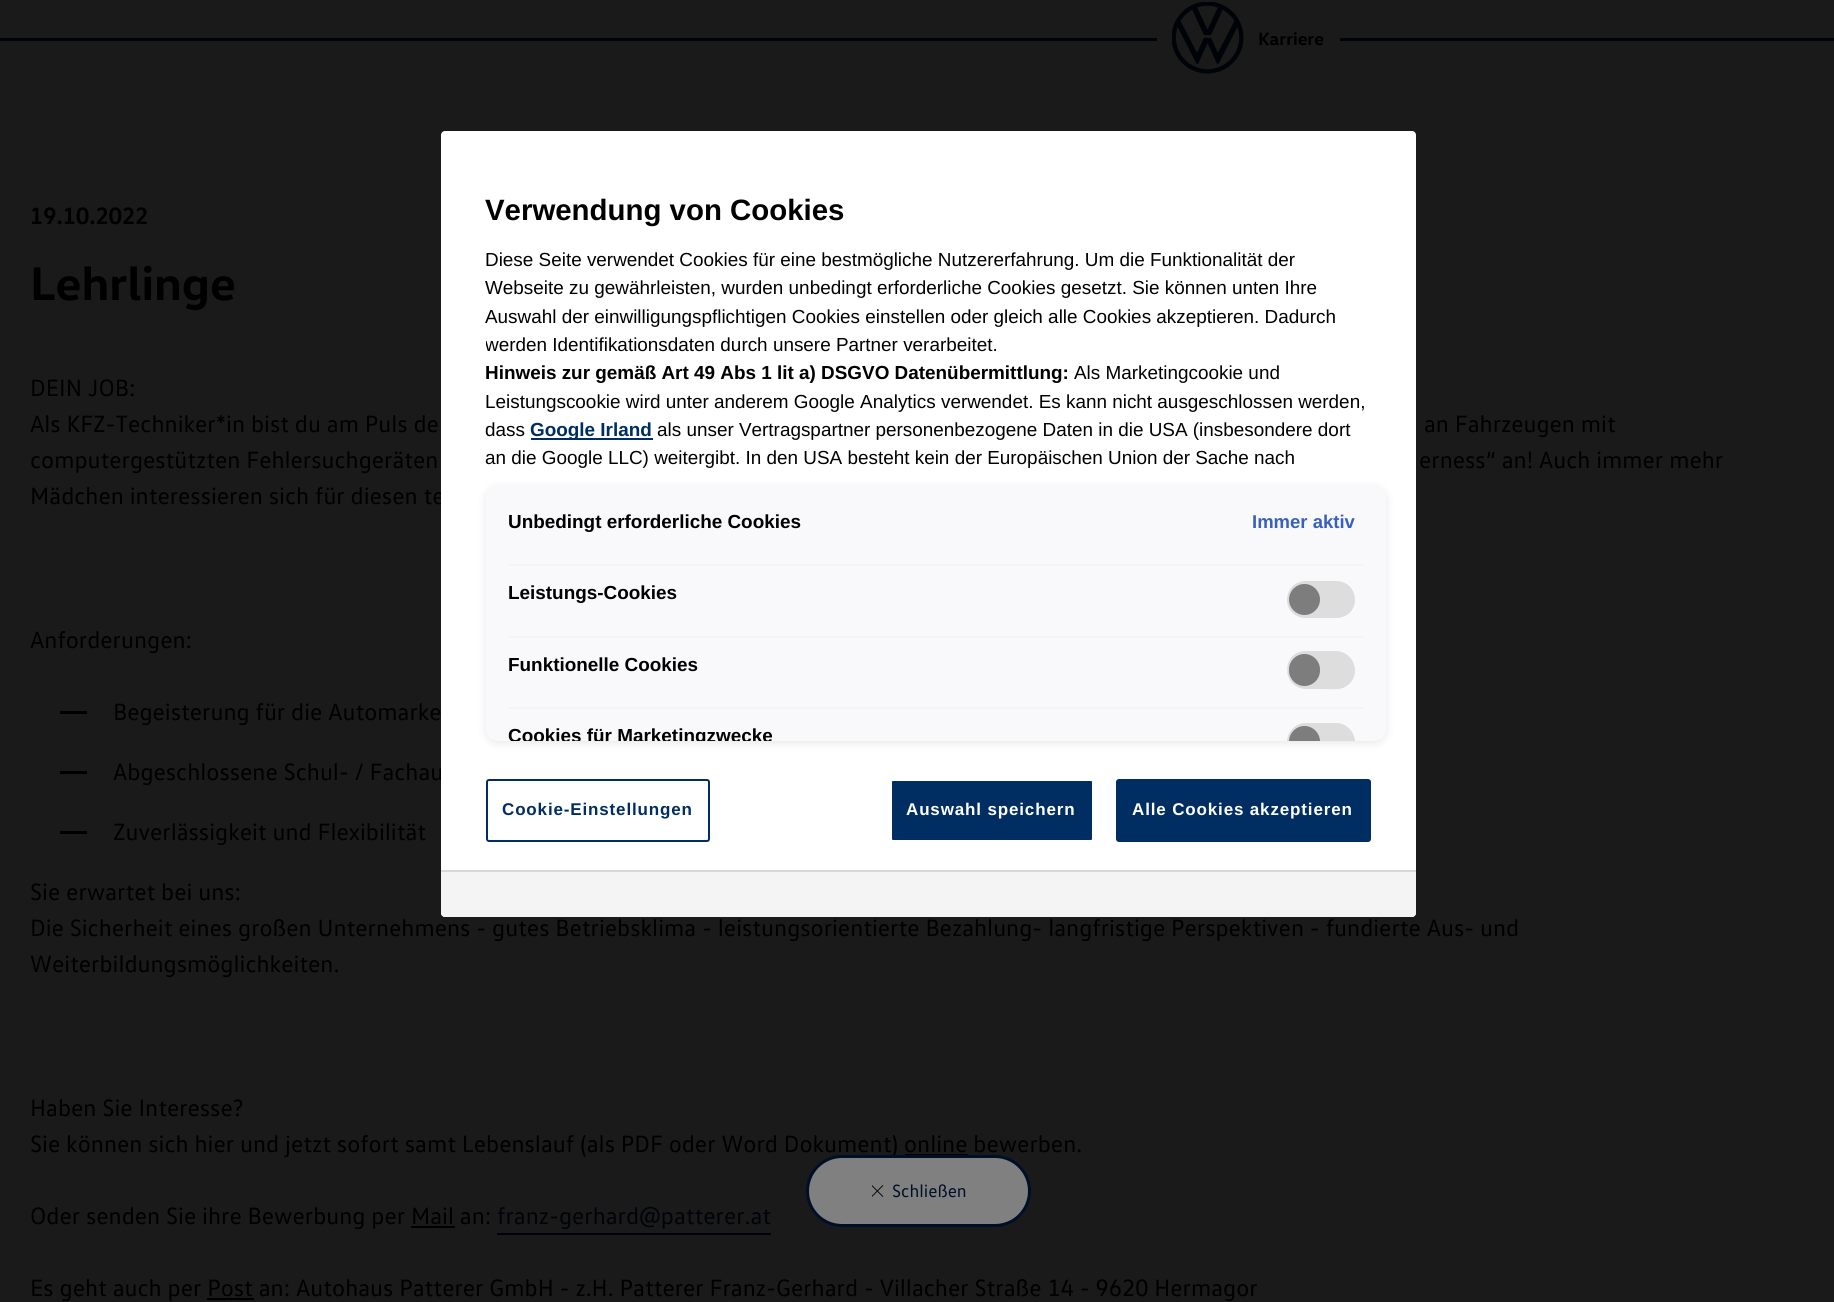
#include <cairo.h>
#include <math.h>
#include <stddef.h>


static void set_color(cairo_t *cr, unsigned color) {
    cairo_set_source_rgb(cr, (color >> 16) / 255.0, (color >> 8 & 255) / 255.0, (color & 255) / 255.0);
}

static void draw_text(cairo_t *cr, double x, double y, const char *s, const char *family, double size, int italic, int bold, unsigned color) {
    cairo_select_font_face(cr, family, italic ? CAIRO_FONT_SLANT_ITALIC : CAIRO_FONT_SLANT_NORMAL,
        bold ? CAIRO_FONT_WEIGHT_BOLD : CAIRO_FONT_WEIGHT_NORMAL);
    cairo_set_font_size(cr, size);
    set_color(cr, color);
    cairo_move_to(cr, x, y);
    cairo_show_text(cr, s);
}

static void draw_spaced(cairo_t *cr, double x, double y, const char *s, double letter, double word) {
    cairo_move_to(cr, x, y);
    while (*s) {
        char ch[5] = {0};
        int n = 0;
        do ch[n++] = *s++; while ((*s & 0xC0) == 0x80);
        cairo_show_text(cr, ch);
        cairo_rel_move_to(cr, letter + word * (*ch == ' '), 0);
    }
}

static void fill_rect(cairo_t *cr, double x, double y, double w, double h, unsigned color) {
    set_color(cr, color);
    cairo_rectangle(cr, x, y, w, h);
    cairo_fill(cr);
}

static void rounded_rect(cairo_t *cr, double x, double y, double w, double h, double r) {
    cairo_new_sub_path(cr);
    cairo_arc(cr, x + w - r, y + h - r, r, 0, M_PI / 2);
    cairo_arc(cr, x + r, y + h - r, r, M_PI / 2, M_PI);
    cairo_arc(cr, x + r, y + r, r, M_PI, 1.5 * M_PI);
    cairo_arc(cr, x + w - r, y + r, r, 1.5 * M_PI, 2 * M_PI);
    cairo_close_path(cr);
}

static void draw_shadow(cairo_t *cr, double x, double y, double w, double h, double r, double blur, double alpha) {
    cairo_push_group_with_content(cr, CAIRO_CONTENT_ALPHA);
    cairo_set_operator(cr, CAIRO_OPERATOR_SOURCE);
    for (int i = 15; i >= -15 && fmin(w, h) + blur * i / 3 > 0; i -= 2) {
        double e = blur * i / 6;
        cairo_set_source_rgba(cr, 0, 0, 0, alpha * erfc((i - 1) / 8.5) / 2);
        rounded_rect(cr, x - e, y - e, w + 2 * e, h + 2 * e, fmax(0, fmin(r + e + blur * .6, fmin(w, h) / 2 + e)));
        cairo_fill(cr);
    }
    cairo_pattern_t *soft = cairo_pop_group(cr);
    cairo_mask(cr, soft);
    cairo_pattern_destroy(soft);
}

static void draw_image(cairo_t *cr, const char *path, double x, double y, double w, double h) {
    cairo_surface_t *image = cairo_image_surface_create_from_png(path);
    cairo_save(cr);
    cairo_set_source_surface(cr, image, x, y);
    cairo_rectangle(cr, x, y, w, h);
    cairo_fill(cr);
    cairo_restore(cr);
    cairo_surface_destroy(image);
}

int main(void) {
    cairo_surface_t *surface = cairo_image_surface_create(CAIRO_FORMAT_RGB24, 1834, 1302);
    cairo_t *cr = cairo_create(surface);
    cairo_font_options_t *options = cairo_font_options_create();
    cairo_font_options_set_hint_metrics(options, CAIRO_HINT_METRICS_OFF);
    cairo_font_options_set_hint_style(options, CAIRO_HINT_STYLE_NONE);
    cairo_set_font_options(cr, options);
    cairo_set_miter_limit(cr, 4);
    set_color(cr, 0x1A1A1A);
    cairo_paint(cr);
    fill_rect(cr, 0, 38, 1157, 3, 0x000308);
    draw_image(cr, "assets/img1.png", 1172, 2, 72, 72);
    draw_text(cr, 1258, 45, "Karriere", "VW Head", 18, 0, 1, 0x000000);
    fill_rect(cr, 1340, 38, 494, 3, 0x000308);
    draw_text(cr, 30, 224, "19.10.2022", "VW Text", 24, 0, 1, 0x000000);
    draw_text(cr, 30, 300, "Lehrlinge", "VW Head", 48, 0, 1, 0x000000);
    draw_text(cr, 30, 396, "DEIN JOB:", "VW Text", 24, 0, 0, 0x000000);
    draw_text(cr, 30, 432, "Als KFZ-Techniker*in bist du am Puls de", "VW Text", 24, 0, 0, 0x000000);
    draw_text(cr, 1424, 432, "an Fahrzeugen mit", "VW Text", 24, 0, 0, 0x000000);
    draw_text(cr, 30, 468, "computergestützten Fehlersuchgeräten", "VW Text", 24, 0, 0, 0x000000);
    draw_text(cr, 1419, 468, "erness“ an! Auch immer mehr", "VW Text", 24, 0, 0, 0x000000);
    draw_text(cr, 30, 504, "Mädchen interessieren sich für diesen te", "VW Text", 24, 0, 0, 0x000000);
    draw_text(cr, 30, 648, "Anforderungen:", "VW Text", 24, 0, 0, 0x000000);
    fill_rect(cr, 60, 711, 27, 3, 0x000000);
    draw_text(cr, 113, 720, "Begeisterung für die Automarke", "VW Text", 24, 0, 0, 0x000000);
    fill_rect(cr, 60, 771, 27, 3, 0x000000);
    draw_text(cr, 113, 780, "Abgeschlossene Schul- / Fachau", "VW Text", 24, 0, 0, 0x000000);
    fill_rect(cr, 60, 831, 27, 3, 0x000000);
    draw_text(cr, 113, 840, "Zuverlässigkeit und Flexibilität", "VW Text", 24, 0, 0, 0x000000);
    draw_text(cr, 30, 900, "Sie erwartet bei uns:", "VW Text", 24, 0, 0, 0x000000);
    draw_text(cr, 30, 936, "Die Sicherheit eines großen Unternehmens - gutes Betriebsklima - leistungsorientierte Bezahlung- langfristige Perspektiven - fundierte Aus- und", "VW Text", 24, 0, 0, 0x000000);
    draw_text(cr, 30, 972, "Weiterbildungsmöglichkeiten.", "VW Text", 24, 0, 0, 0x000000);
    draw_text(cr, 30, 1116, "Haben Sie Interesse?", "VW Text", 24, 0, 0, 0x000000);
    draw_text(cr, 30, 1152, "Sie können sich hier und jetzt sofort samt Lebenslauf (als PDF oder Word Dokument) online bewerben.", "VW Text", 24, 0, 0, 0x000000);
    fill_rect(cr, 905, 1154, 63, 1, 0x000000);
    draw_text(cr, 30, 1224, "Oder senden Sie ihre Bewerbung per Mail an:", "VW Text", 24, 0, 0, 0x000000);
    draw_text(cr, 497, 1224, "franz-gerhard@patterer.at", "VW Text", 24, 0, 0, 0x000308);
    fill_rect(cr, 497, 1233, 274, 2, 0x000308);
    fill_rect(cr, 411, 1226, 44, 2, 0x000000);
    draw_text(cr, 30, 1296, "Es geht auch per Post an: Autohaus Patterer GmbH - z.H. Patterer Franz-Gerhard - Villacher Straße 14 - 9620 Hermagor", "VW Text", 24, 0, 0, 0x000000);
    fill_rect(cr, 207, 1298, 47, 2, 0x000000);
    set_color(cr, 0xFFFFFF);
    rounded_rect(cr, 441, 131, 975, 786, 4);
    cairo_fill(cr);
    draw_text(cr, 485, 220, "Verwendung von Cookies", "Liberation Sans", 29.4, 0, 1, 0x000000);
    draw_text(cr, 485, 266, "Diese Seite verwendet Cookies für eine bestmögliche Nutzererfahrung. Um die Funktionalität der", "Liberation Sans", 18.9, 0, 0, 0x000000);
    draw_text(cr, 485, 294, "Webseite zu gewährleisten, wurden unbedingt erforderliche Cookies gesetzt. Sie können unten Ihre", "Liberation Sans", 18.9, 0, 0, 0x000000);
    draw_text(cr, 485, 323, "Auswahl der einwilligungspflichtigen Cookies einstellen oder gleich alle Cookies akzeptieren. Dadurch", "Liberation Sans", 18.9, 0, 0, 0x000000);
    cairo_save(cr);
    cairo_rectangle(cr, 486, 246, 885, 225);
    cairo_clip(cr);
    draw_text(cr, 485, 351, "werden Identifikationsdaten durch unsere Partner verarbeitet.", "Liberation Sans", 18.9, 0, 0, 0x000000);
    cairo_restore(cr);
    draw_text(cr, 485, 379, "Hinweis zur gemäß Art 49 Abs 1 lit a) DSGVO Datenübermittlung:", "Liberation Sans", 18.9, 0, 1, 0x000000);
    draw_text(cr, 1074, 379, "Als Marketingcookie und", "Liberation Sans", 18.9, 0, 0, 0x000000);
    draw_text(cr, 485, 408, "Leistungscookie wird unter anderem Google Analytics verwendet. Es kann nicht ausgeschlossen werden,", "Liberation Sans", 18.9, 0, 0, 0x000000);
    draw_text(cr, 485, 436, "dass", "Liberation Sans", 18.9, 0, 0, 0x000000);
    fill_rect(cr, 531, 438, 122, 2, 0x002E62);
    draw_text(cr, 530, 436, "Google Irland", "Liberation Sans", 18.9, 0, 1, 0x002E62);
    draw_text(cr, 657, 436, "als unser Vertragspartner personenbezogene Daten in die USA (insbesondere dort", "Liberation Sans", 18.9, 0, 0, 0x000000);
    draw_text(cr, 485, 464, "an die Google LLC) weitergibt. In den USA besteht kein der Europäischen Union der Sache nach", "Liberation Sans", 18.9, 0, 0, 0x000000);
    set_color(cr, 0x000000);
    draw_shadow(cr, 486, 488, 900, 255, 12, 4.5, 0.1);
    set_color(cr, 0xF9F9FC);
    rounded_rect(cr, 486, 486, 900, 255, 12);
    cairo_fill(cr);
    fill_rect(cr, 509, 564, 855, 2, 0xF4F4F4);
    draw_text(cr, 508, 528, "Unbedingt erforderliche Cookies", "Liberation Sans", 18.9, 0, 1, 0x000000);
    draw_text(cr, 1252, 528, "Immer aktiv", "Liberation Sans", 18.5, 0, 1, 0x3860BE);
    fill_rect(cr, 509, 636, 855, 2, 0xF4F4F4);
    draw_text(cr, 508, 599, "Leistungs-Cookies", "Liberation Sans", 18.9, 0, 1, 0x000000);
    set_color(cr, 0xDDDDDD);
    cairo_new_path(cr);
    cairo_move_to(cr, 1306, 581);
    cairo_line_to(cr, 1336, 581);
    cairo_curve_to(cr, 1347, 581, 1355, 589, 1355, 600);
    cairo_curve_to(cr, 1355, 610, 1347, 618, 1336, 618);
    cairo_line_to(cr, 1306, 618);
    cairo_curve_to(cr, 1295, 618, 1287, 610, 1287, 600);
    cairo_curve_to(cr, 1287, 589, 1295, 581, 1306, 581);
    cairo_close_path(cr);
    cairo_fill(cr);
    set_color(cr, 0x7D7D7D);
    cairo_arc(cr, 1304.5, 599.5, 15.5, 0, 2 * M_PI);
    cairo_fill(cr);
    fill_rect(cr, 509, 707, 855, 2, 0xF4F4F4);
    draw_text(cr, 508, 671, "Funktionelle Cookies", "Liberation Sans", 18.9, 0, 1, 0x000000);
    set_color(cr, 0xF2F1F1);
    rounded_rect(cr, 1287, 651, 68, 38, 19);
    cairo_fill(cr);
    set_color(cr, 0xDDDDDD);
    cairo_new_path(cr);
    cairo_move_to(cr, 1306, 651);
    cairo_line_to(cr, 1336, 651);
    cairo_curve_to(cr, 1356, 652, 1363, 679, 1343, 688);
    cairo_curve_to(cr, 1337, 690, 1328, 689, 1321, 689);
    cairo_line_to(cr, 1306, 689);
    cairo_curve_to(cr, 1281, 688, 1281, 651, 1306, 651);
    cairo_close_path(cr);
    cairo_fill(cr);
    set_color(cr, 0x7D7D7D);
    rounded_rect(cr, 1289, 654, 31, 32, 15.5);
    cairo_fill(cr);
    cairo_save(cr);
    rounded_rect(cr, 486, 486, 900, 255, 12);
    cairo_clip(cr);
    draw_text(cr, 508, 742, "Cookies für Marketingzwecke", "Liberation Sans", 18.9, 0, 1, 0x000000);
    cairo_restore(cr);
    set_color(cr, 0xF2F1F1);
    cairo_new_path(cr);
    cairo_move_to(cr, 1306, 723);
    cairo_line_to(cr, 1336, 723);
    cairo_curve_to(cr, 1346.5, 723, 1355, 731.5, 1355, 742);
    cairo_line_to(cr, 1355, 741);
    cairo_line_to(cr, 1287, 741);
    cairo_line_to(cr, 1287, 742);
    cairo_curve_to(cr, 1287, 731.5, 1295.5, 723, 1306, 723);
    cairo_close_path(cr);
    cairo_fill(cr);
    set_color(cr, 0xDDDDDD);
    cairo_new_path(cr);
    cairo_move_to(cr, 1306, 723);
    cairo_curve_to(cr, 1296, 723, 1288, 731, 1287, 741);
    cairo_line_to(cr, 1355, 741);
    cairo_curve_to(cr, 1354, 731, 1346, 723, 1336, 723);
    cairo_close_path(cr);
    cairo_fill(cr);
    set_color(cr, 0x7D7D7D);
    cairo_new_path(cr);
    cairo_move_to(cr, 1304.5, 726);
    cairo_curve_to(cr, 1313, 726, 1320, 733, 1320, 741.5);
    cairo_line_to(cr, 1320, 741);
    cairo_line_to(cr, 1289, 741);
    cairo_line_to(cr, 1289, 741.5);
    cairo_curve_to(cr, 1289, 733, 1296, 726, 1304.5, 726);
    cairo_close_path(cr);
    cairo_fill(cr);
    rounded_rect(cr, 487, 780, 222, 61, 2);
    set_color(cr, 0x002E62);
    cairo_stroke(cr);
    cairo_set_font_size(cr, 17);
    draw_spaced(cr, 502, 815, "Cookie-Einstellungen", 0.85, 0);
    rounded_rect(cr, 891, 780, 202, 61, 2);
    cairo_fill_preserve(cr);
    set_color(cr, 0xFFFFFF);
    cairo_stroke(cr);
    draw_spaced(cr, 906, 815, "Auswahl speichern", 0.85, 0);
    set_color(cr, 0x002E62);
    rounded_rect(cr, 1117, 780, 253, 61, 2);
    cairo_fill_preserve(cr);
    cairo_stroke(cr);
    set_color(cr, 0xFFFFFF);
    draw_spaced(cr, 1132, 815, "Alle Cookies akzeptieren", 0.85, 0);
    set_color(cr, 0xF4F4F4);
    cairo_new_path(cr);
    cairo_move_to(cr, 441, 870);
    cairo_line_to(cr, 1416, 870);
    cairo_line_to(cr, 1416, 913);
    cairo_curve_to(cr, 1416, 915, 1414, 917, 1412, 917);
    cairo_line_to(cr, 445, 917);
    cairo_curve_to(cr, 443, 917, 441, 915, 441, 913);
    cairo_close_path(cr);
    cairo_fill(cr);
    fill_rect(cr, 441, 870, 975, 2, 0xD8D8D8);
    set_color(cr, 0x808080);
    rounded_rect(cr, 807.5, 1156.5, 222, 69, 34.5);
    cairo_fill_preserve(cr);
    set_color(cr, 0x000F28);
    cairo_set_line_width(cr, 3);
    cairo_stroke(cr);
    draw_image(cr, "assets/img2.png", 872, 1185, 12, 12);
    draw_text(cr, 892, 1197, "Schließen", "VW Text", 18, 0, 0, 0x000F28);
    cairo_surface_write_to_png(surface, "output.png");
    cairo_font_options_destroy(options);
    cairo_destroy(cr);
    cairo_surface_destroy(surface);
    return 0;
}
